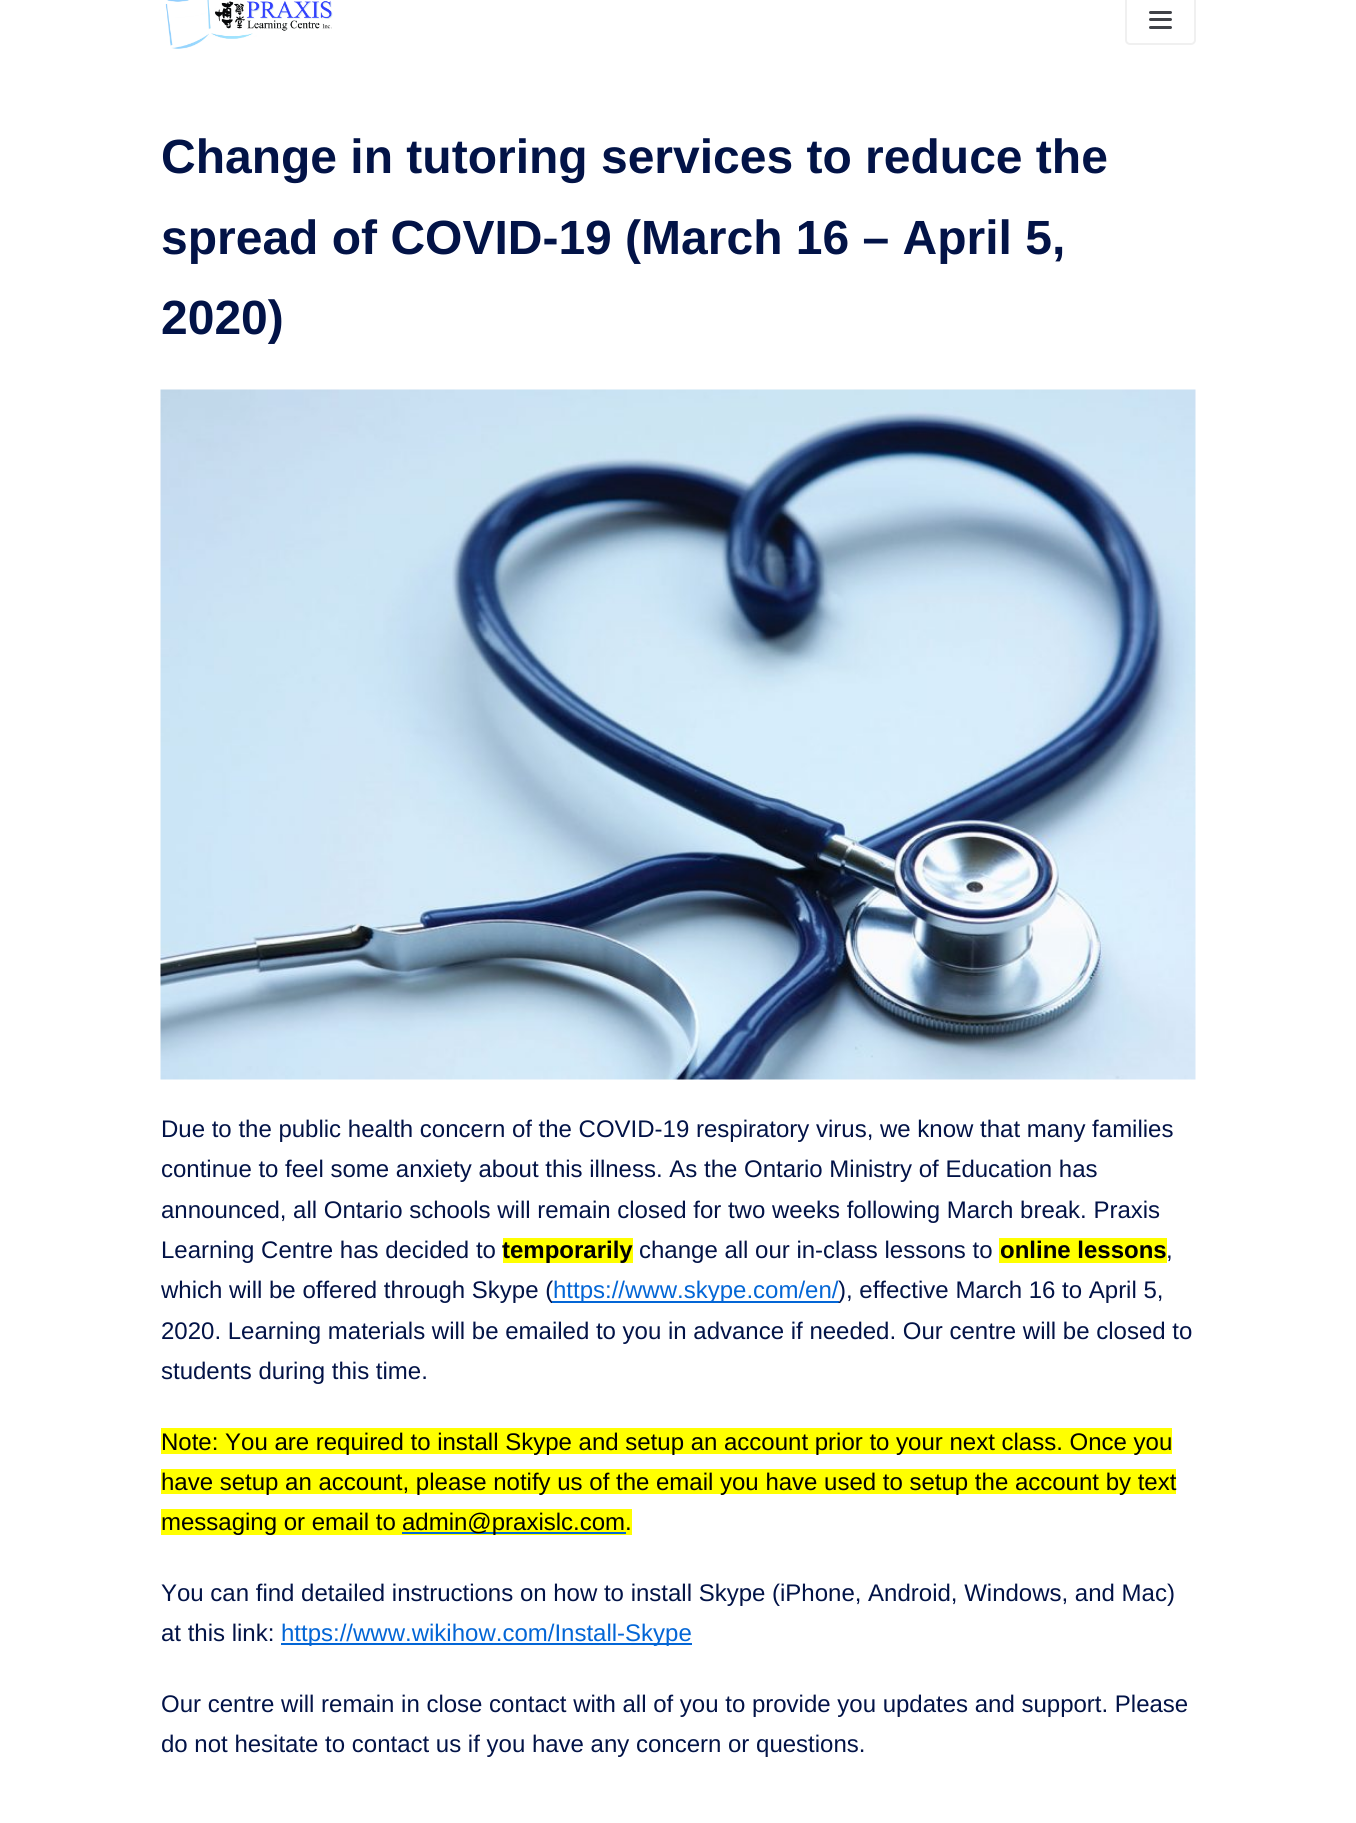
#include <cairo.h>
#include <math.h>
#include <stddef.h>


static void set_color(cairo_t *cr, unsigned color) {
    cairo_set_source_rgb(cr, (color >> 16) / 255.0, (color >> 8 & 255) / 255.0, (color & 255) / 255.0);
}

static void draw_text(cairo_t *cr, double x, double y, const char *s, const char *family, double size, int italic, int bold, unsigned color) {
    cairo_select_font_face(cr, family, italic ? CAIRO_FONT_SLANT_ITALIC : CAIRO_FONT_SLANT_NORMAL,
        bold ? CAIRO_FONT_WEIGHT_BOLD : CAIRO_FONT_WEIGHT_NORMAL);
    cairo_set_font_size(cr, size);
    set_color(cr, color);
    cairo_move_to(cr, x, y);
    cairo_show_text(cr, s);
}

static void fill_rect(cairo_t *cr, double x, double y, double w, double h, unsigned color) {
    set_color(cr, color);
    cairo_rectangle(cr, x, y, w, h);
    cairo_fill(cr);
}

static void rounded_rect(cairo_t *cr, double x, double y, double w, double h, double r) {
    cairo_new_sub_path(cr);
    cairo_arc(cr, x + w - r, y + h - r, r, 0, M_PI / 2);
    cairo_arc(cr, x + r, y + h - r, r, M_PI / 2, M_PI);
    cairo_arc(cr, x + r, y + r, r, M_PI, 1.5 * M_PI);
    cairo_arc(cr, x + w - r, y + r, r, 1.5 * M_PI, 2 * M_PI);
    cairo_close_path(cr);
}

static void draw_image(cairo_t *cr, const char *path, double x, double y, double w, double h) {
    cairo_surface_t *image = cairo_image_surface_create_from_png(path);
    cairo_save(cr);
    cairo_set_source_surface(cr, image, x, y);
    cairo_rectangle(cr, x, y, w, h);
    cairo_fill(cr);
    cairo_restore(cr);
    cairo_surface_destroy(image);
}

int main(void) {
    cairo_surface_t *surface = cairo_image_surface_create(CAIRO_FORMAT_RGB24, 1356, 1823);
    cairo_t *cr = cairo_create(surface);
    cairo_font_options_t *options = cairo_font_options_create();
    cairo_font_options_set_hint_metrics(options, CAIRO_HINT_METRICS_OFF);
    cairo_font_options_set_hint_style(options, CAIRO_HINT_STYLE_NONE);
    cairo_set_font_options(cr, options);
    cairo_set_miter_limit(cr, 4);
    set_color(cr, 0xFFFFFF);
    cairo_paint(cr);
    draw_image(cr, "assets/img1.png", 165, 0, 168, 49);
    rounded_rect(cr, 1126, -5, 69, 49, 4);
    set_color(cr, 0xF0F0F0);
    cairo_stroke(cr);
    set_color(cr, 0x404248);
    rounded_rect(cr, 1149, 11, 23, 3, 1.5);
    cairo_fill(cr);
    rounded_rect(cr, 1149, 18, 23, 3, 1.5);
    cairo_fill(cr);
    rounded_rect(cr, 1149, 26, 23, 3, 1.5);
    cairo_fill(cr);
    draw_text(cr, 161, 173, "Change in tutoring services to reduce the", "Liberation Sans", 48, 0, 1, 0x021347);
    draw_text(cr, 161, 254, "spread of COVID-19 (March 16 – April 5,", "Liberation Sans", 48, 0, 1, 0x021347);
    draw_text(cr, 161, 334, "2020)", "Liberation Sans", 48, 0, 1, 0x021347);
    draw_image(cr, "assets/img2.png", 160, 389, 1036, 691);
    draw_text(cr, 161, 1137, "Due to the public health concern of the COVID-19 respiratory virus, we know that many families", "Liberation Sans", 24, 0, 0, 0x021347);
    draw_text(cr, 161, 1177, "continue to feel some anxiety about this illness. As the Ontario Ministry of Education has", "Liberation Sans", 24, 0, 0, 0x021347);
    draw_text(cr, 161, 1218, "announced, all Ontario schools will remain closed for two weeks following March break. Praxis", "Liberation Sans", 24, 0, 0, 0x021347);
    draw_text(cr, 161, 1258, "Learning Centre has decided to", "Liberation Sans", 24, 0, 0, 0x021347);
    fill_rect(cr, 503, 1238, 130, 25, 0xFFFF00);
    draw_text(cr, 502, 1258, "temporarily", "Liberation Sans", 24, 0, 1, 0x000000);
    draw_text(cr, 639, 1258, "change all our in-class lessons to", "Liberation Sans", 24, 0, 0, 0x021347);
    fill_rect(cr, 999, 1238, 168, 25, 0xFFFF00);
    draw_text(cr, 1000, 1258, "online lessons", "Liberation Sans", 24, 0, 1, 0x000000);
    draw_text(cr, 1166, 1258, ",", "Liberation Sans", 24, 0, 0, 0x021347);
    draw_text(cr, 161, 1298, "which will be offered through Skype (", "Liberation Sans", 24, 0, 0, 0x021347);
    fill_rect(cr, 552, 1301, 287, 2, 0x0366D6);
    draw_text(cr, 553, 1298, "https://www.skype.com/en/", "Liberation Sans", 24, 0, 0, 0x0366D6);
    draw_text(cr, 838, 1298, "), effective March 16 to April 5,", "Liberation Sans", 24, 0, 0, 0x021347);
    draw_text(cr, 161, 1339, "2020. Learning materials will be emailed to you in advance if needed. Our centre will be closed to", "Liberation Sans", 24, 0, 0, 0x021347);
    draw_text(cr, 161, 1379, "students during this time.", "Liberation Sans", 24, 0, 0, 0x021347);
    fill_rect(cr, 161, 1428, 1011, 26, 0xFFFF00);
    draw_text(cr, 161, 1450, "Note: You are required to install Skype and setup an account prior to your next class. Once you", "Liberation Sans", 24, 0, 0, 0x000000);
    fill_rect(cr, 161, 1469, 1015, 25, 0xFFFF00);
    draw_text(cr, 161, 1490, "have setup an account, please notify us of the email you have used to setup the account by text", "Liberation Sans", 24, 0, 0, 0x000000);
    fill_rect(cr, 161, 1509, 471, 26, 0xFFFF00);
    draw_text(cr, 161, 1530, "messaging or email to", "Liberation Sans", 24, 0, 0, 0x000000);
    fill_rect(cr, 402, 1532, 224, 2, 0x0366D6);
    draw_text(cr, 402, 1530, "admin@praxislc.com.", "Liberation Sans", 24, 0, 0, 0x000000);
    draw_text(cr, 161, 1601, "You can find detailed instructions on how to install Skype (iPhone, Android, Windows, and Mac)", "Liberation Sans", 24, 0, 0, 0x021347);
    draw_text(cr, 161, 1641, "at this link:", "Liberation Sans", 24, 0, 0, 0x021347);
    fill_rect(cr, 281, 1643, 411, 2, 0x0366D6);
    draw_text(cr, 281, 1641, "https://www.wikihow.com/Install-Skype", "Liberation Sans", 24, 0, 0, 0x0366D6);
    draw_text(cr, 161, 1712, "Our centre will remain in close contact with all of you to provide you updates and support. Please", "Liberation Sans", 24, 0, 0, 0x021347);
    draw_text(cr, 161, 1752, "do not hesitate to contact us if you have any concern or questions.", "Liberation Sans", 24, 0, 0, 0x021347);
    cairo_surface_write_to_png(surface, "output.png");
    cairo_font_options_destroy(options);
    cairo_destroy(cr);
    cairo_surface_destroy(surface);
    return 0;
}
